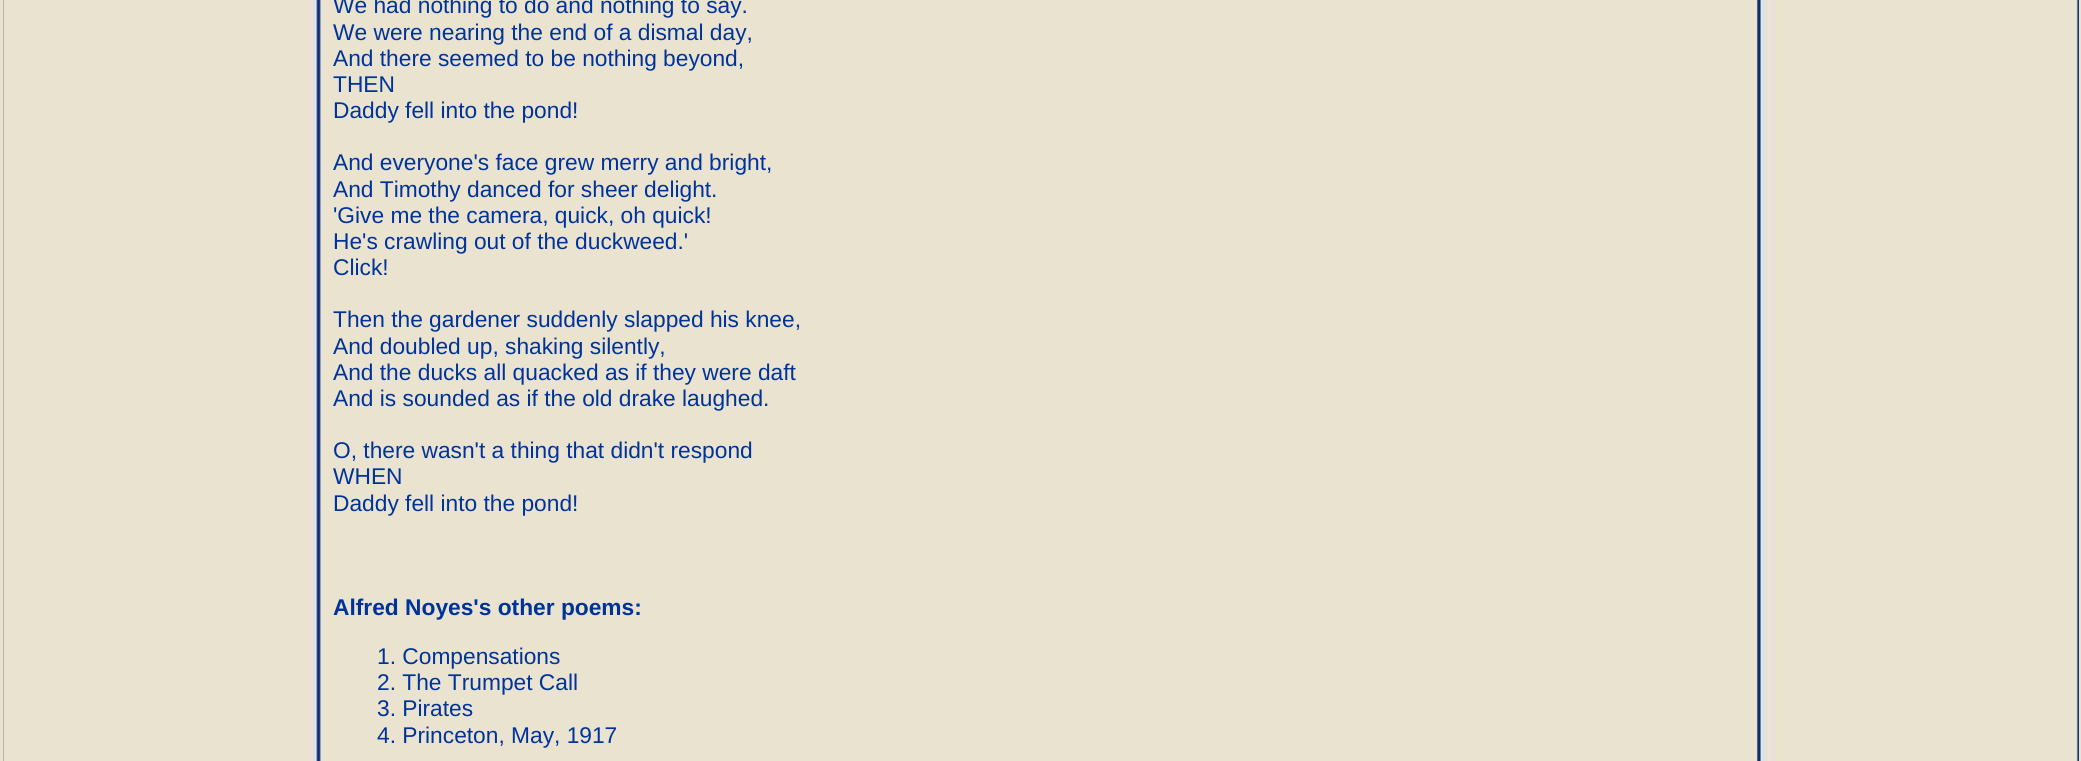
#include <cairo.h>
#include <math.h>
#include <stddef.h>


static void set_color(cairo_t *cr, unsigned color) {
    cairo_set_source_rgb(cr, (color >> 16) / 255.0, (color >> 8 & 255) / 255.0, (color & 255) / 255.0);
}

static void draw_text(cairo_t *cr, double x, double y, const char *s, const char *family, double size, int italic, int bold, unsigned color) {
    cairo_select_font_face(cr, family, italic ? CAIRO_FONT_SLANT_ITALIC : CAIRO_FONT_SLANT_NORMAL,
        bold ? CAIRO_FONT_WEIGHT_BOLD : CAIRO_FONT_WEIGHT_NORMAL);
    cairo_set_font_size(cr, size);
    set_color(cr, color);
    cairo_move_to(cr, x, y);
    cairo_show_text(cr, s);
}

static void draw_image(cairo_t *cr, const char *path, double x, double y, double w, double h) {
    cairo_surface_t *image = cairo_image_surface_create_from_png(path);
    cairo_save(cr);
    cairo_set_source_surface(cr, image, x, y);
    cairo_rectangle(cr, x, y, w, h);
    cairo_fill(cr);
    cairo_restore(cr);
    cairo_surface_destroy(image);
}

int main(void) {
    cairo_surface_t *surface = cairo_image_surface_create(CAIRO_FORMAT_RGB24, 2081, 761);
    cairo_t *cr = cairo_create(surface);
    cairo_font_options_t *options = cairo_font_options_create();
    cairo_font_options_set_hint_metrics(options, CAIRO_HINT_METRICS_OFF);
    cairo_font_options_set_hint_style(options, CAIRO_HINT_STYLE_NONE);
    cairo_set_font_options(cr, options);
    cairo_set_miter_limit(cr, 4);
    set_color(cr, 0xEAE3D0);
    cairo_paint(cr);
    draw_image(cr, "assets/img1.png", 3, 0, 318, 761);
    draw_image(cr, "assets/img2.png", 1757, 0, 322, 761);
    draw_text(cr, 333, 13, "We had nothing to do and nothing to say.", "Liberation Sans", 22.75, 0, 0, 0x003399);
    draw_text(cr, 333, 40, "We were nearing the end of a dismal day,", "Liberation Sans", 22.75, 0, 0, 0x003399);
    draw_text(cr, 333, 66, "And there seemed to be nothing beyond,", "Liberation Sans", 22.75, 0, 0, 0x003399);
    draw_text(cr, 333, 92, "THEN", "Liberation Sans", 22.75, 0, 0, 0x003399);
    draw_text(cr, 333, 118, "Daddy fell into the pond!", "Liberation Sans", 22.75, 0, 0, 0x003399);
    draw_text(cr, 333, 170, "And everyone's face grew merry and bright,", "Liberation Sans", 22.75, 0, 0, 0x003399);
    draw_text(cr, 333, 197, "And Timothy danced for sheer delight.", "Liberation Sans", 22.75, 0, 0, 0x003399);
    draw_text(cr, 333, 223, "'Give me the camera, quick, oh quick!", "Liberation Sans", 22.75, 0, 0, 0x003399);
    draw_text(cr, 333, 249, "He's crawling out of the duckweed.'", "Liberation Sans", 22.75, 0, 0, 0x003399);
    draw_text(cr, 333, 275, "Click!", "Liberation Sans", 22.75, 0, 0, 0x003399);
    draw_text(cr, 333, 327, "Then the gardener suddenly slapped his knee,", "Liberation Sans", 22.75, 0, 0, 0x003399);
    draw_text(cr, 333, 354, "And doubled up, shaking silently,", "Liberation Sans", 22.75, 0, 0, 0x003399);
    draw_text(cr, 333, 380, "And the ducks all quacked as if they were daft", "Liberation Sans", 22.75, 0, 0, 0x003399);
    draw_text(cr, 333, 406, "And is sounded as if the old drake laughed.", "Liberation Sans", 22.75, 0, 0, 0x003399);
    draw_text(cr, 333, 458, "O, there wasn't a thing that didn't respond", "Liberation Sans", 22.75, 0, 0, 0x003399);
    draw_text(cr, 333, 484, "WHEN", "Liberation Sans", 22.75, 0, 0, 0x003399);
    draw_text(cr, 333, 511, "Daddy fell into the pond!", "Liberation Sans", 22.75, 0, 0, 0x003399);
    draw_text(cr, 333, 615, "Alfred Noyes's other poems:", "Liberation Sans", 22.75, 0, 1, 0x003399);
    draw_text(cr, 377, 664, "1. Compensations", "Liberation Sans", 22.75, 0, 0, 0x003399);
    draw_text(cr, 377, 690, "2. The Trumpet Call", "Liberation Sans", 22.75, 0, 0, 0x003399);
    draw_text(cr, 377, 716, "3. Pirates", "Liberation Sans", 22.75, 0, 0, 0x003399);
    draw_text(cr, 377, 743, "4. Princeton, May, 1917", "Liberation Sans", 22.75, 0, 0, 0x003399);
    cairo_surface_write_to_png(surface, "output.png");
    cairo_font_options_destroy(options);
    cairo_destroy(cr);
    cairo_surface_destroy(surface);
    return 0;
}
